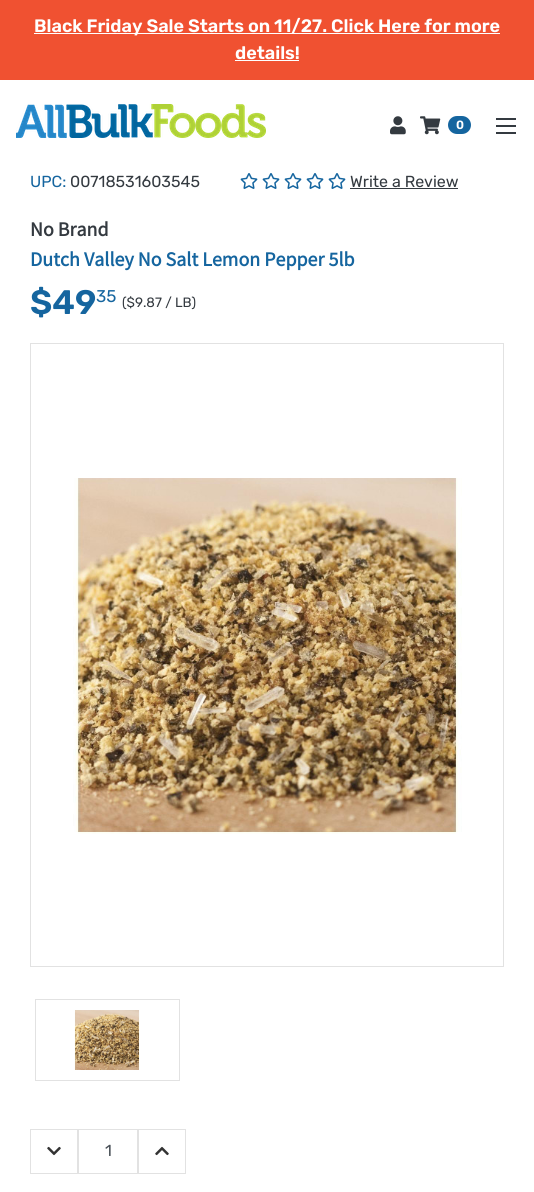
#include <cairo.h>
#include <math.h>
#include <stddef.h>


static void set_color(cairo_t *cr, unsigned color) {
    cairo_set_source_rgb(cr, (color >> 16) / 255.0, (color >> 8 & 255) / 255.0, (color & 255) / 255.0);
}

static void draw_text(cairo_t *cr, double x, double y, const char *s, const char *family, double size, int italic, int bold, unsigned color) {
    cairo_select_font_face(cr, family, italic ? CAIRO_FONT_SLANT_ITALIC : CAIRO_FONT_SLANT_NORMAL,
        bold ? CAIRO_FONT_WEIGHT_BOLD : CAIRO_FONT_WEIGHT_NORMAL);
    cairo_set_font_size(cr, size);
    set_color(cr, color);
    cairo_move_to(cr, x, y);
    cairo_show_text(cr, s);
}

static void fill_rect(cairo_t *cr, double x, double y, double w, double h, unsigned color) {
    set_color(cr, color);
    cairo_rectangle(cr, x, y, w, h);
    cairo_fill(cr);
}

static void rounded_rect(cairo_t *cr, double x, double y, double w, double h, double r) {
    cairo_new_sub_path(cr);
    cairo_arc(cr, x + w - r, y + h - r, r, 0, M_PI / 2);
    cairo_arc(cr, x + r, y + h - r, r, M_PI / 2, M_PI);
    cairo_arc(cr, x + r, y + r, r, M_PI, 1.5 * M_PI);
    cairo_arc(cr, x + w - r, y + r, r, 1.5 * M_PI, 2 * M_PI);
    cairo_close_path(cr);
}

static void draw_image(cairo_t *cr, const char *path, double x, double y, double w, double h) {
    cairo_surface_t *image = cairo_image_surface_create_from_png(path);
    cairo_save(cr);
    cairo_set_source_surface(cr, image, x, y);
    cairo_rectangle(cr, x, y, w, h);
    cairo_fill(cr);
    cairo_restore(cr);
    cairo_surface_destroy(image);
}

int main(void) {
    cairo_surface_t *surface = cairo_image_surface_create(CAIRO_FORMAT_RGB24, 534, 1192);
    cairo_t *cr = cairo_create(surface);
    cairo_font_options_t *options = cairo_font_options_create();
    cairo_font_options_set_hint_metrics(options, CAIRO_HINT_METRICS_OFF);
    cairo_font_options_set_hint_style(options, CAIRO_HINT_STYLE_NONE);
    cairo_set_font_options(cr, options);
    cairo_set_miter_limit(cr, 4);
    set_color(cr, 0xFFFFFF);
    cairo_paint(cr);
    fill_rect(cr, 0, 0, 534, 80, 0xF05131);
    fill_rect(cr, 34, 33, 466, 1, 0xFFFFFF);
    draw_text(cr, 34, 32, "Black Friday Sale Starts on 11/27. Click Here for more", "Rubik SemiBold", 18, 0, 0, 0xFFFFFF);
    draw_text(cr, 235, 59, "details!", "Rubik SemiBold", 18, 0, 0, 0xFFFFFF);
    fill_rect(cr, 235, 60, 64, 1, 0xFFFFFF);
    draw_image(cr, "assets/img1.png", 16, 104, 250, 34);
    draw_image(cr, "assets/img2.png", 390, 116, 16, 19);
    draw_image(cr, "assets/img3.png", 420, 116, 21, 19);
    set_color(cr, 0x15659F);
    rounded_rect(cr, 448, 116, 23, 18, 9);
    cairo_fill(cr);
    draw_text(cr, 456, 129, "0", "Rubik SemiBold", 12, 0, 0, 0xFFFFFF);
    fill_rect(cr, 496, 125, 20, 2, 0x343A40);
    fill_rect(cr, 496, 118, 20, 2, 0x343A40);
    fill_rect(cr, 496, 132, 20, 2, 0x343A40);
    draw_text(cr, 30, 187, "UPC:", "Rubik", 16, 0, 0, 0x15659F);
    draw_text(cr, 70, 187, "00718531603545", "Rubik", 16, 0, 0, 0x343A40);
    draw_image(cr, "assets/img4.png", 240, 173, 18, 16);
    draw_image(cr, "assets/img4.png", 262, 173, 18, 16);
    draw_image(cr, "assets/img4.png", 284, 173, 18, 16);
    draw_image(cr, "assets/img4.png", 306, 173, 18, 16);
    draw_image(cr, "assets/img4.png", 328, 173, 18, 16);
    draw_text(cr, 350, 187, "Write a Review", "Rubik", 16, 0, 0, 0x343A40);
    fill_rect(cr, 350, 188, 108, 1, 0x343A40);
    draw_text(cr, 30, 236, "No Brand", "Source Sans Pro", 20, 0, 1, 0x343A40);
    draw_text(cr, 30, 266, "Dutch Valley No Salt Lemon Pepper 5lb", "Source Sans Pro", 20, 0, 1, 0x15659F);
    draw_text(cr, 30, 314, "$49", "Rubik SemiBold", 34, 0, 0, 0x15659F);
    draw_text(cr, 96, 302, "35", "Rubik", 17, 0, 0, 0x15659F);
    draw_text(cr, 122, 307, "($9.87 / LB)", "Rubik", 13.5, 0, 0, 0x343A40);
    cairo_rectangle(cr, 30.5, 343.5, 473, 623);
    set_color(cr, 0xE2E2E2);
    cairo_set_line_width(cr, 1);
    cairo_stroke(cr);
    draw_image(cr, "assets/img5.png", 73, 478, 389, 356);
    cairo_rectangle(cr, 35.5, 999.5, 144, 81);
    cairo_stroke(cr);
    draw_image(cr, "assets/img6.png", 74, 1010, 66, 60);
    cairo_rectangle(cr, 30.5, 1129.5, 47, 44);
    cairo_stroke(cr);
    draw_image(cr, "assets/img7.png", 47, 1146, 14, 10);
    cairo_rectangle(cr, 78.5, 1129.5, 59, 44);
    cairo_stroke(cr);
    draw_text(cr, 105, 1156, "1", "Rubik", 16, 0, 0, 0x495057);
    cairo_rectangle(cr, 138.5, 1129.5, 47, 44);
    set_color(cr, 0xE2E2E2);
    cairo_stroke(cr);
    draw_image(cr, "assets/img8.png", 155, 1146, 14, 10);
    cairo_surface_write_to_png(surface, "output.png");
    cairo_font_options_destroy(options);
    cairo_destroy(cr);
    cairo_surface_destroy(surface);
    return 0;
}
